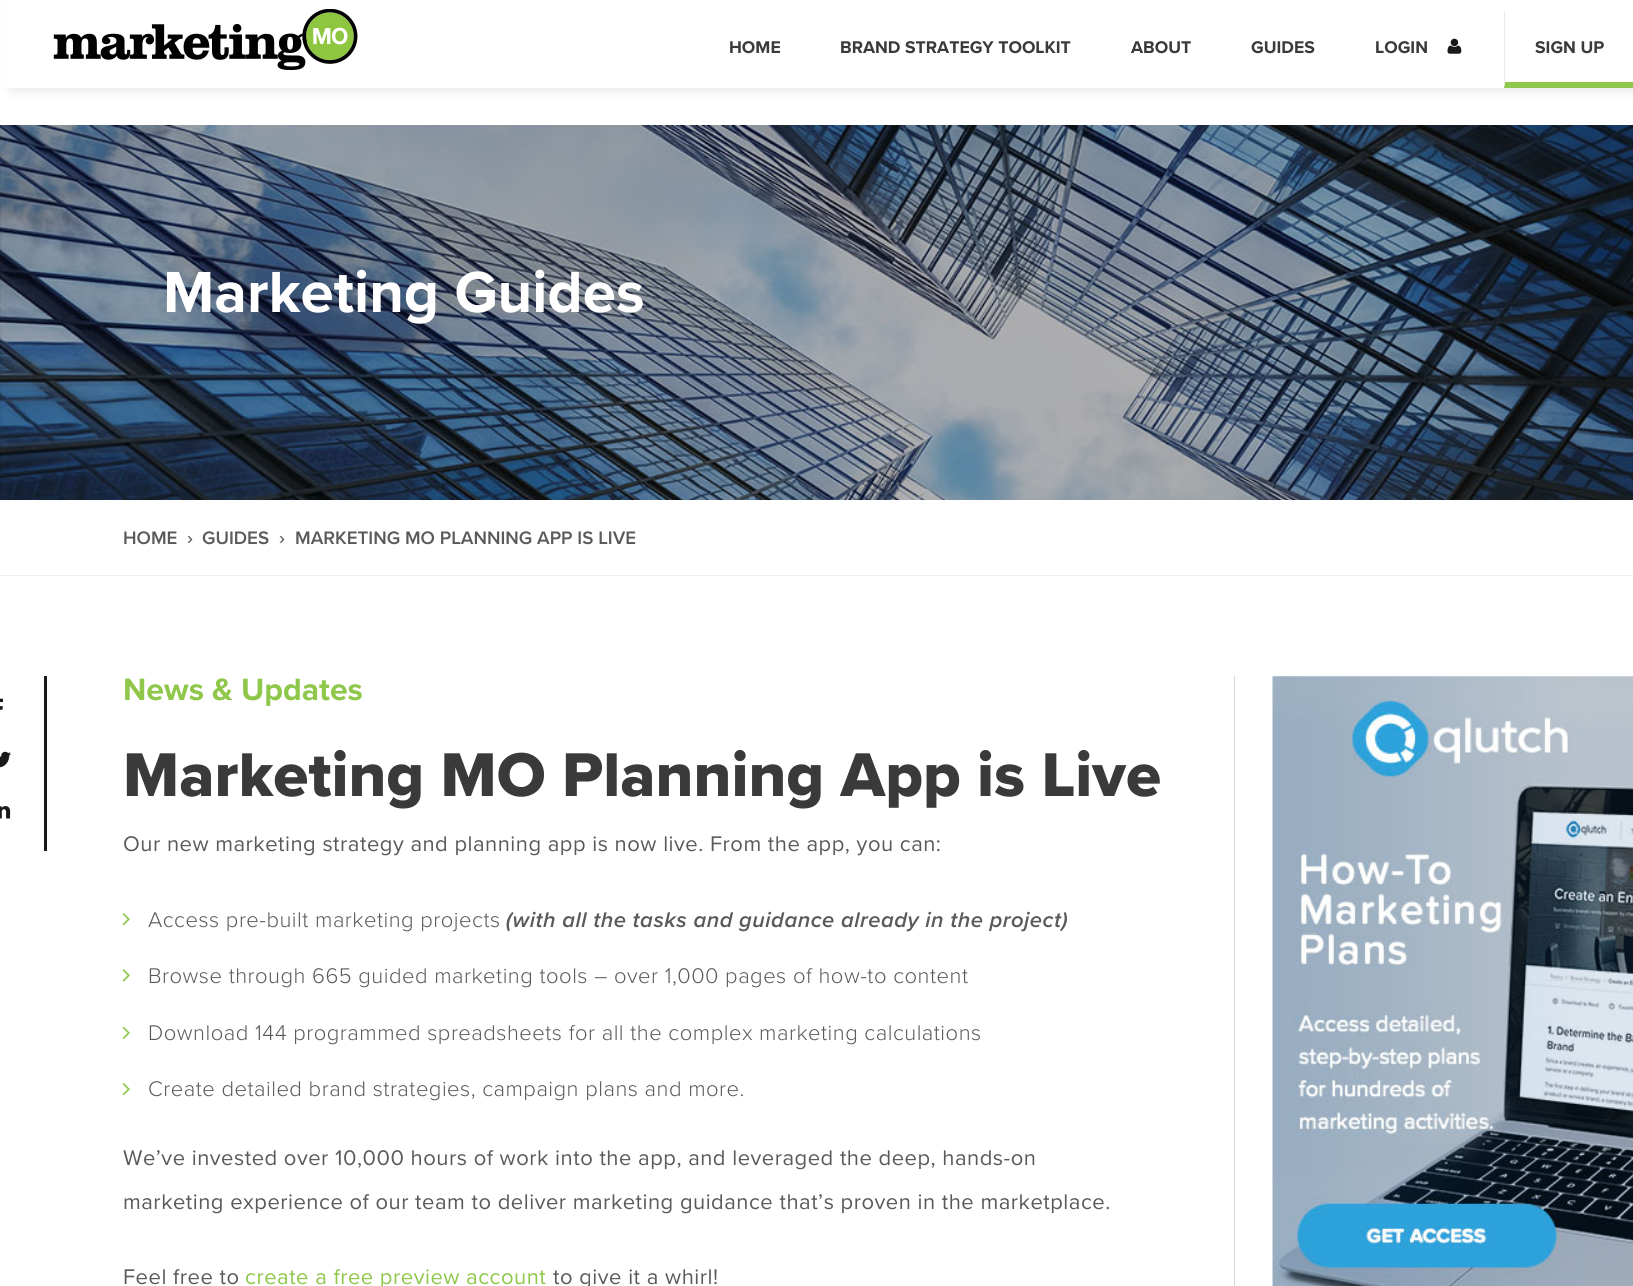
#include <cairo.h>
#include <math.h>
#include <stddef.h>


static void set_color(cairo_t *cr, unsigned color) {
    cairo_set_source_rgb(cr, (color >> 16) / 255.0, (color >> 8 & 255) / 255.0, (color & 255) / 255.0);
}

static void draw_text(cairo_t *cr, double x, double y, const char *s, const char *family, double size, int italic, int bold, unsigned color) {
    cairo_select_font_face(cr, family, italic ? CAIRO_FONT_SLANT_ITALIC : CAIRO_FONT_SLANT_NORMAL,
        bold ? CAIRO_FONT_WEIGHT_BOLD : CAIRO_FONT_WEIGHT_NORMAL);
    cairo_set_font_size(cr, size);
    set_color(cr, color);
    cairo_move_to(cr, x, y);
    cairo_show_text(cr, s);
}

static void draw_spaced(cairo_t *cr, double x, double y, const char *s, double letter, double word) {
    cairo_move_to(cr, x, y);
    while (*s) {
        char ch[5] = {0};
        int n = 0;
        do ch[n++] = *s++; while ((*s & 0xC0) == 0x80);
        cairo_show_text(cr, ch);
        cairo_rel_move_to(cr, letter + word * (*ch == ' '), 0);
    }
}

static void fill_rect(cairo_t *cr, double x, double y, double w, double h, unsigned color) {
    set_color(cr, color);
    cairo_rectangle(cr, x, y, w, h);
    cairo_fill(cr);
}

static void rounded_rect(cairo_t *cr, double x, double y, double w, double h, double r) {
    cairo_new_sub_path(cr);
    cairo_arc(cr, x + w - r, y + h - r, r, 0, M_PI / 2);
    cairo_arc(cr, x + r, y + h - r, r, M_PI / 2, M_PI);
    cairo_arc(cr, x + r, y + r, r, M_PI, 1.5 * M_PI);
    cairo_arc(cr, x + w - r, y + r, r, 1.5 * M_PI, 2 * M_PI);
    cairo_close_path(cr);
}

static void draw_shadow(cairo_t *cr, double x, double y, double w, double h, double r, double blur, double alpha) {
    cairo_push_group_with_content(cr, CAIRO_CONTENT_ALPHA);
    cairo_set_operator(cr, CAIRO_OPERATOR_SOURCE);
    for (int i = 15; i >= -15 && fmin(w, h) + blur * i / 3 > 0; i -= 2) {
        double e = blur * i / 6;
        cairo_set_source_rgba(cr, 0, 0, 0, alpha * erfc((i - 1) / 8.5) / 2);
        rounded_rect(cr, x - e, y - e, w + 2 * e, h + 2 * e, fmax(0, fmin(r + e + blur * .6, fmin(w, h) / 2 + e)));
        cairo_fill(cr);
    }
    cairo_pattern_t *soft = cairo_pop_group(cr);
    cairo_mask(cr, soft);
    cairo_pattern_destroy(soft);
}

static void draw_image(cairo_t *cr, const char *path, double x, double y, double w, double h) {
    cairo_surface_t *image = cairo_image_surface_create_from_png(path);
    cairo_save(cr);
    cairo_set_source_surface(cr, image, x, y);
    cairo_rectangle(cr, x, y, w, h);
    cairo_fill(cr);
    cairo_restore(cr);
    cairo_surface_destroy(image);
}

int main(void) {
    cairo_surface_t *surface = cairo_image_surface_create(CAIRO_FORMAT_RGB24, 1633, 1286);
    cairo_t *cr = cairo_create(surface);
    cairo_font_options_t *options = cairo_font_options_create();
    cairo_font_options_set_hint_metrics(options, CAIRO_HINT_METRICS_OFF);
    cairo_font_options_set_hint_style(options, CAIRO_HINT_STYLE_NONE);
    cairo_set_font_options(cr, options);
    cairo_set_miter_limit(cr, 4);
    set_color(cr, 0xFFFFFF);
    cairo_paint(cr);
    set_color(cr, 0x000000);
    draw_shadow(cr, 13, 0, 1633, 88, 0, 7.5, 0.14);
    fill_rect(cr, 2, 0, 1631, 88, 0xFFFFFF);
    draw_image(cr, "assets/img1.png", 53, 9, 305, 61);
    draw_text(cr, 729, 53, "HOME", "Proxima Nova", 17.6, 0, 1, 0x3A3A3A);
    draw_text(cr, 840, 53, "BRAND STRATEGY TOOLKIT", "Proxima Nova", 17.6, 0, 1, 0x3A3A3A);
    draw_text(cr, 1131, 53, "ABOUT", "Proxima Nova", 17.6, 0, 1, 0x3A3A3A);
    draw_text(cr, 1251, 53, "GUIDES", "Proxima Nova", 17.6, 0, 1, 0x3A3A3A);
    draw_text(cr, 1375, 53, "LOGIN", "Proxima Nova", 17.6, 0, 1, 0x3A3A3A);
    draw_image(cr, "assets/img2.png", 1447, 38, 15, 16);
    set_color(cr, 0x8EC749);
    cairo_new_path(cr);
    cairo_move_to(cr, 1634, 88);
    cairo_line_to(cr, 1504, 88);
    cairo_line_to(cr, 1505, 82);
    cairo_line_to(cr, 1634, 82);
    cairo_close_path(cr);
    cairo_fill(cr);
    set_color(cr, 0xEAEAEB);
    cairo_new_path(cr);
    cairo_move_to(cr, 1504, 88);
    cairo_line_to(cr, 1504, 11);
    cairo_line_to(cr, 1505, 11);
    cairo_line_to(cr, 1505, 82);
    cairo_close_path(cr);
    cairo_fill(cr);
    draw_text(cr, 1535, 53, "SIGN UP", "Proxima Nova", 17.6, 0, 1, 0x3A3A3A);
    draw_image(cr, "assets/img3.png", 0, 125, 1633, 375);
    draw_text(cr, 163, 312, "Marketing Guides", "Proxima Nova", 60, 0, 1, 0xFFFFFF);
    fill_rect(cr, 0, 575, 1633, 1, 0xEFEFEF);
    draw_text(cr, 123, 544, "HOME", "Proxima Nova SemiBold", 18.75, 0, 0, 0x5A5A5A);
    draw_text(cr, 187, 544, "›", "Proxima Nova SemiBold", 18.75, 0, 0, 0x5A5A5A);
    draw_text(cr, 202, 544, "GUIDES", "Proxima Nova SemiBold", 18.75, 0, 0, 0x5A5A5A);
    draw_text(cr, 279, 544, "›", "Proxima Nova SemiBold", 18.75, 0, 0, 0x5A5A5A);
    draw_text(cr, 295, 544, "MARKETING MO PLANNING APP IS LIVE", "Proxima Nova SemiBold", 18.75, 0, 0, 0x5A5A5A);
    fill_rect(cr, 44, 676, 3, 175, 0x1A1919);
    draw_image(cr, "assets/img4.png", 0, 698, 4, 12);
    draw_image(cr, "assets/img5.png", 0, 751, 11, 17);
    draw_image(cr, "assets/img6.png", 0, 806, 11, 13);
    draw_text(cr, 123, 700, "News & Updates", "Proxima Nova", 32, 0, 1, 0x8EC749);
    draw_text(cr, 123, 796, "Marketing MO Planning App is Live", "Proxima Nova ExtraBold", 64, 0, 0, 0x3A3A3A);
    cairo_select_font_face(cr, "Proxima Nova", CAIRO_FONT_SLANT_NORMAL, CAIRO_FONT_WEIGHT_NORMAL);
    cairo_set_font_size(cr, 22);
    set_color(cr, 0x5A5A5A);
    draw_spaced(cr, 123, 851, "Our new marketing strategy and planning app is now live. From the app, you can:", 0.5, 0);
    draw_image(cr, "assets/img7.png", 122, 913, 8, 13);
    cairo_select_font_face(cr, "Proxima Nova Light", CAIRO_FONT_SLANT_NORMAL, CAIRO_FONT_WEIGHT_NORMAL);
    draw_spaced(cr, 148, 927, "Access pre-built marketing projects", 0.5, 0);
    cairo_select_font_face(cr, "Proxima Nova SemiBold", CAIRO_FONT_SLANT_ITALIC, CAIRO_FONT_WEIGHT_NORMAL);
    draw_spaced(cr, 506, 927, "(with all the tasks and guidance already in the project)", 0.5, 0);
    draw_image(cr, "assets/img8.png", 122, 969, 8, 13);
    cairo_select_font_face(cr, "Proxima Nova Light", CAIRO_FONT_SLANT_NORMAL, CAIRO_FONT_WEIGHT_NORMAL);
    draw_spaced(cr, 148, 983, "Browse through 665 guided marketing tools – over 1,000 pages of how-to content", 0.5, 0);
    draw_image(cr, "assets/img9.png", 122, 1026, 8, 13);
    draw_spaced(cr, 148, 1040, "Download 144 programmed spreadsheets for all the complex marketing calculations", 0.5, 0);
    draw_image(cr, "assets/img7.png", 122, 1083, 8, 13);
    draw_spaced(cr, 148, 1096, "Create detailed brand strategies, campaign plans and more.", 0.5, 0);
    cairo_select_font_face(cr, "Proxima Nova", CAIRO_FONT_SLANT_NORMAL, CAIRO_FONT_WEIGHT_NORMAL);
    draw_spaced(cr, 123, 1165, "We’ve invested over 10,000 hours of work into the app, and leveraged the deep, hands-on", 0.5, 0);
    draw_spaced(cr, 123, 1209, "marketing experience of our team to deliver marketing guidance that’s proven in the marketplace.", 0.5, 0);
    draw_spaced(cr, 123, 1284, "Feel free to", 0.5, 0);
    set_color(cr, 0x8EC749);
    draw_spaced(cr, 245, 1284, "create a free preview account", 0.5, 0);
    set_color(cr, 0x5A5A5A);
    draw_spaced(cr, 553, 1284, "to give it a whirl!", 0.5, 0);
    fill_rect(cr, 1234, 676, 1, 610, 0xD8D8D8);
    draw_image(cr, "assets/img10.png", 1272, 676, 361, 610);
    cairo_surface_write_to_png(surface, "output.png");
    cairo_font_options_destroy(options);
    cairo_destroy(cr);
    cairo_surface_destroy(surface);
    return 0;
}
